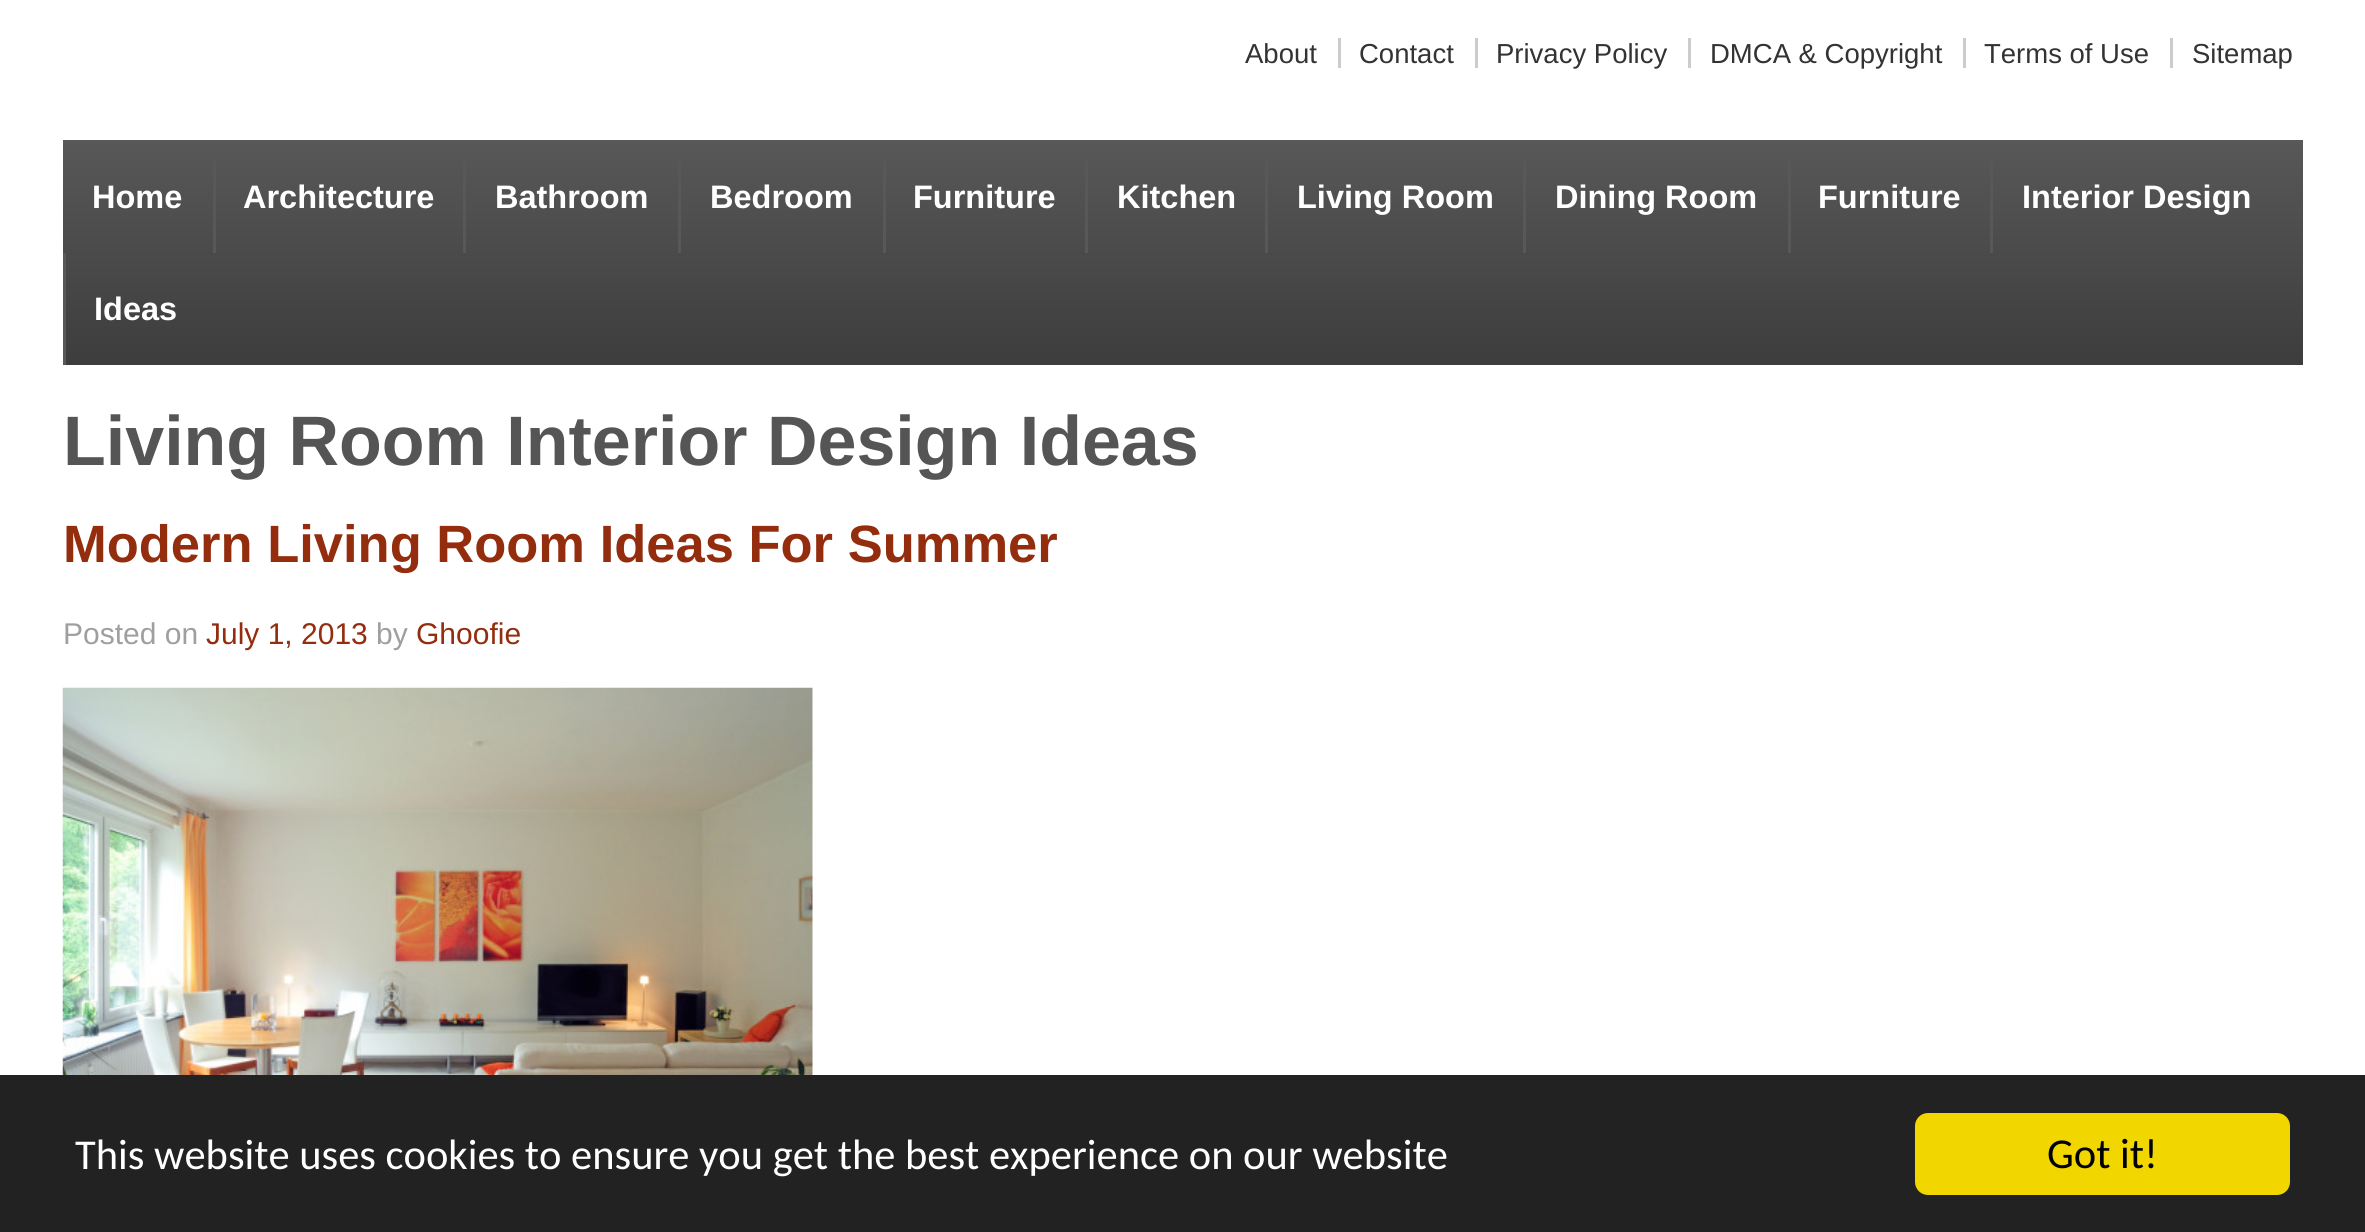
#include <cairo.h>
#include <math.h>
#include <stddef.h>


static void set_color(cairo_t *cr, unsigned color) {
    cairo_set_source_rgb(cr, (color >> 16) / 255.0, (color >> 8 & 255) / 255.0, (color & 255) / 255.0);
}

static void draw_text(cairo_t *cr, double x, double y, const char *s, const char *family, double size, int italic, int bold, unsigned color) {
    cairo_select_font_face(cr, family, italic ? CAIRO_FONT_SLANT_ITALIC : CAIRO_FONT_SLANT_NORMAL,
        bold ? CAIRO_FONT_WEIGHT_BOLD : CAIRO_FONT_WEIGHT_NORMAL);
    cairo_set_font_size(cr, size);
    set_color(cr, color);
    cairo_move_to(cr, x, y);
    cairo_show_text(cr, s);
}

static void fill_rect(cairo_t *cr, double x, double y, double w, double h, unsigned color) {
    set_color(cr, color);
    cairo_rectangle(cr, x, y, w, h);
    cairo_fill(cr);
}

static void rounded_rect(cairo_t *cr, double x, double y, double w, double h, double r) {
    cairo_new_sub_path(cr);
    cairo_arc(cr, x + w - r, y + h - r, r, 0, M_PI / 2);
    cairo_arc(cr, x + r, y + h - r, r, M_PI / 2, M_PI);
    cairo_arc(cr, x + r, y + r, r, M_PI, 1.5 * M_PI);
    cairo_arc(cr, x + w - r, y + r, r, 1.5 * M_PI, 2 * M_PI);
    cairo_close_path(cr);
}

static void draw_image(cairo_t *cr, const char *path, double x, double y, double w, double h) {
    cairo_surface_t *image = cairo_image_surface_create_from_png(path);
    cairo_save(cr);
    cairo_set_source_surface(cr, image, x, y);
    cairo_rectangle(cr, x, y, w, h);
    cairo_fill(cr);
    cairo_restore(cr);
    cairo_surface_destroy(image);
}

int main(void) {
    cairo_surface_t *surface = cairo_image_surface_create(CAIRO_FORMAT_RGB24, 2365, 1232);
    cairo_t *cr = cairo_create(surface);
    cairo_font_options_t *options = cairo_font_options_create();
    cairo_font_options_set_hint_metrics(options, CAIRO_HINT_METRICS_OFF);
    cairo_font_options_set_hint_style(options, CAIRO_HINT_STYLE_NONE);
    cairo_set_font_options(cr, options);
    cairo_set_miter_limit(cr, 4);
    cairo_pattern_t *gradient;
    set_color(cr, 0xFFFFFF);
    cairo_paint(cr);
    draw_text(cr, 1245, 63, "About", "Liberation Sans", 27.5, 0, 0, 0x333333);
    draw_text(cr, 1359, 63, "Contact", "Liberation Sans", 27.5, 0, 0, 0x333333);
    fill_rect(cr, 1338, 38, 3, 30, 0xCCCCCC);
    draw_text(cr, 1496, 63, "Privacy Policy", "Liberation Sans", 27.5, 0, 0, 0x333333);
    fill_rect(cr, 1475, 38, 3, 30, 0xCCCCCC);
    draw_text(cr, 1710, 63, "DMCA & Copyright", "Liberation Sans", 27.5, 0, 0, 0x333333);
    fill_rect(cr, 1688, 38, 3, 30, 0xCCCCCC);
    draw_text(cr, 1984, 63, "Terms of Use", "Liberation Sans", 27.5, 0, 0, 0x333333);
    fill_rect(cr, 1963, 38, 3, 30, 0xCCCCCC);
    draw_text(cr, 2192, 63, "Sitemap", "Liberation Sans", 27.5, 0, 0, 0x333333);
    fill_rect(cr, 2170, 38, 3, 30, 0xCCCCCC);
    gradient = cairo_pattern_create_linear(1183, 140, 1183, 365);
    cairo_pattern_add_color_stop_rgba(gradient, 0, 0.345, 0.345, 0.345, 1);
    cairo_pattern_add_color_stop_rgba(gradient, 1, 0.239, 0.239, 0.239, 1);
    cairo_set_source(cr, gradient);
    cairo_pattern_destroy(gradient);
    cairo_rectangle(cr, 63, 140, 2240, 225);
    cairo_fill(cr);
    draw_text(cr, 92, 208, "Home", "Liberation Sans", 32.5, 0, 1, 0xFFFFFF);
    fill_rect(cr, 213, 161, 3, 92, 0x585858);
    draw_text(cr, 243, 208, "Architecture", "Liberation Sans", 32.5, 0, 1, 0xFFFFFF);
    fill_rect(cr, 463, 161, 3, 92, 0x585858);
    draw_text(cr, 495, 208, "Bathroom", "Liberation Sans", 32.5, 0, 1, 0xFFFFFF);
    fill_rect(cr, 678, 161, 3, 92, 0x585858);
    draw_text(cr, 710, 208, "Bedroom", "Liberation Sans", 32.5, 0, 1, 0xFFFFFF);
    fill_rect(cr, 883, 161, 3, 92, 0x585858);
    draw_text(cr, 913, 208, "Furniture", "Liberation Sans", 32.5, 0, 1, 0xFFFFFF);
    fill_rect(cr, 1085, 161, 3, 92, 0x585858);
    draw_text(cr, 1117, 208, "Kitchen", "Liberation Sans", 32.5, 0, 1, 0xFFFFFF);
    fill_rect(cr, 1265, 161, 3, 92, 0x585858);
    draw_text(cr, 1297, 208, "Living Room", "Liberation Sans", 32.5, 0, 1, 0xFFFFFF);
    fill_rect(cr, 1523, 161, 3, 92, 0x585858);
    draw_text(cr, 1555, 208, "Dining Room", "Liberation Sans", 32.5, 0, 1, 0xFFFFFF);
    fill_rect(cr, 1788, 161, 3, 92, 0x585858);
    draw_text(cr, 1818, 208, "Furniture", "Liberation Sans", 32.5, 0, 1, 0xFFFFFF);
    fill_rect(cr, 1990, 161, 3, 92, 0x585858);
    draw_text(cr, 2022, 208, "Interior Design", "Liberation Sans", 32.5, 0, 1, 0xFFFFFF);
    fill_rect(cr, 63, 253, 3, 112, 0x585858);
    draw_text(cr, 94, 320, "Ideas", "Liberation Sans", 32.5, 0, 1, 0xFFFFFF);
    draw_text(cr, 63, 465, "Living Room Interior Design Ideas", "Liberation Sans", 70, 0, 1, 0x555555);
    draw_text(cr, 63, 562, "Modern Living Room Ideas For Summer", "Liberation Sans", 52.5, 0, 1, 0x942D0E);
    draw_text(cr, 63, 644, "Posted on", "Liberation Sans", 30, 0, 0, 0x9F9F9F);
    draw_text(cr, 206, 644, "July 1, 2013", "Liberation Sans", 30, 0, 0, 0x942D0E);
    draw_text(cr, 376, 644, "by", "Liberation Sans", 30, 0, 0, 0x9F9F9F);
    draw_text(cr, 416, 644, "Ghoofie", "Liberation Sans", 30, 0, 0, 0x942D0E);
    draw_image(cr, "assets/img1.png", 62, 687, 751, 388);
    fill_rect(cr, 0, 1075, 2365, 157, 0x222222);
    draw_text(cr, 75, 1169, "This website uses cookies to ensure you get the best experience on our website", "Carlito", 42.5, 0, 0, 0xFFFFFF);
    set_color(cr, 0xF1D600);
    rounded_rect(cr, 1915, 1113, 375, 82, 13);
    cairo_fill(cr);
    draw_text(cr, 2047, 1168, "Got it!", "Carlito", 42.5, 0, 0, 0x000000);
    cairo_surface_write_to_png(surface, "output.png");
    cairo_font_options_destroy(options);
    cairo_destroy(cr);
    cairo_surface_destroy(surface);
    return 0;
}
